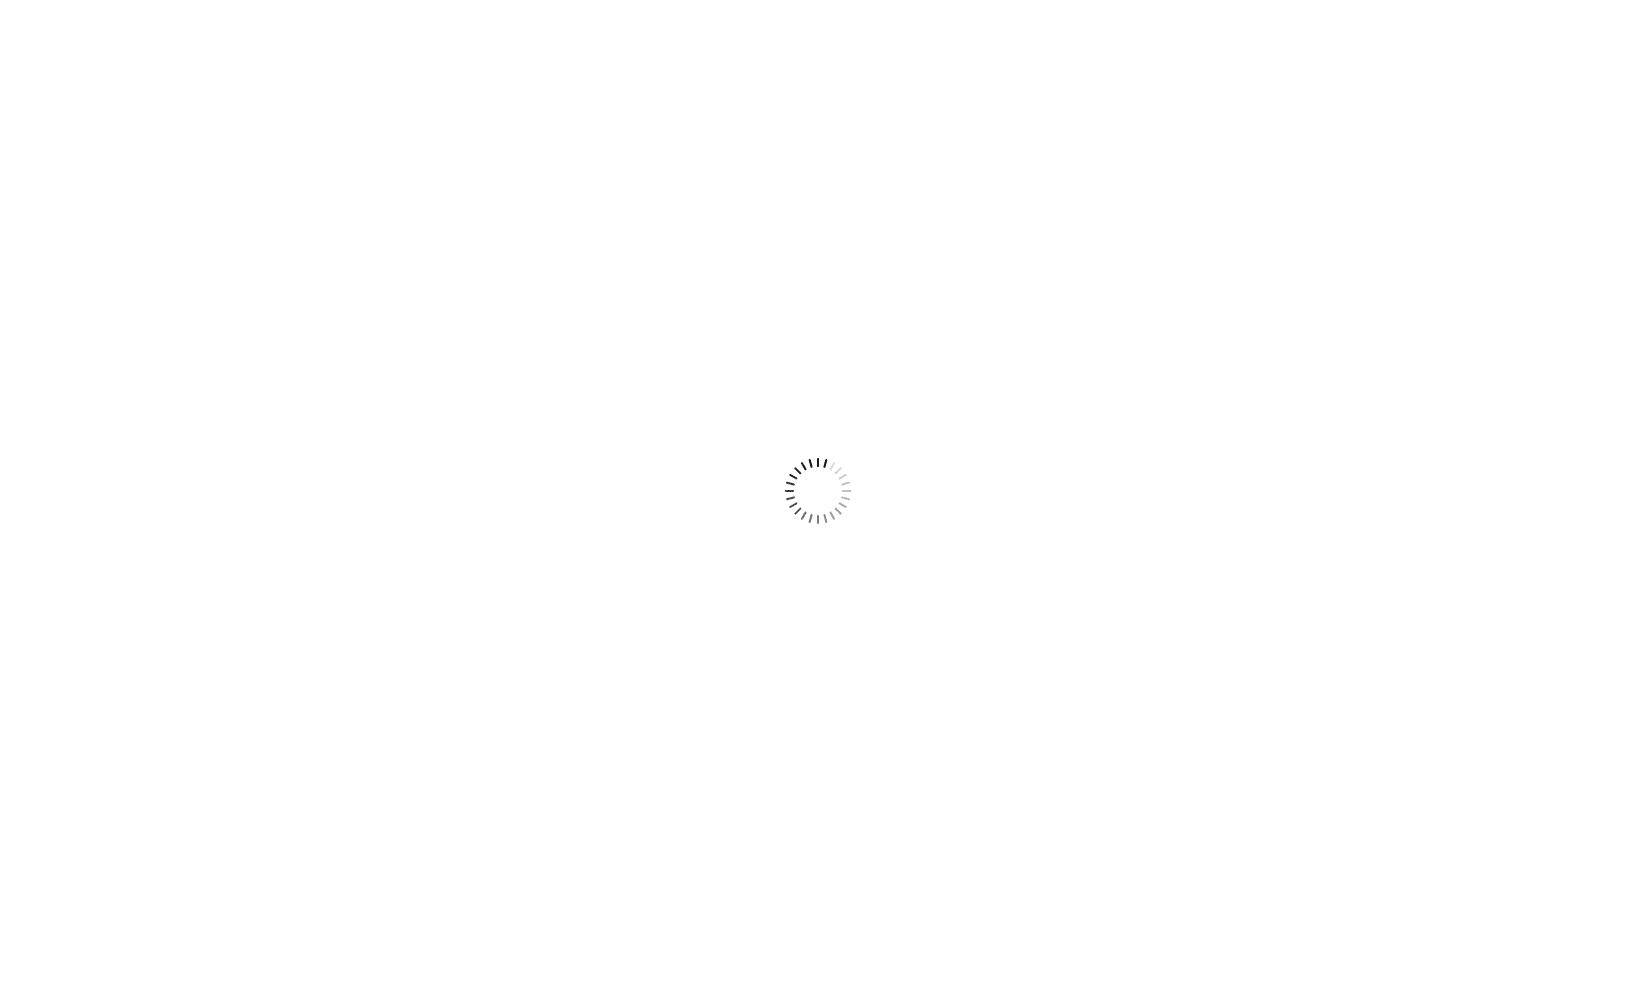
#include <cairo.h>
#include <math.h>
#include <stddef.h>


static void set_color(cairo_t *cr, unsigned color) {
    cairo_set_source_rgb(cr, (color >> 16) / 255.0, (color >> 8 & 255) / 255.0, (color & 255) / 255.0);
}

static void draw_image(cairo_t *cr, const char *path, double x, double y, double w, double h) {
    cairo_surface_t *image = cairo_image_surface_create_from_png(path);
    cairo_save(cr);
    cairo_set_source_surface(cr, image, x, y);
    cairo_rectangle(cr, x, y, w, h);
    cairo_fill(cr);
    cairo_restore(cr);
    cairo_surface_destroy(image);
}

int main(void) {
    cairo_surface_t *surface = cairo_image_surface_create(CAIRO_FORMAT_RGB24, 1635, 982);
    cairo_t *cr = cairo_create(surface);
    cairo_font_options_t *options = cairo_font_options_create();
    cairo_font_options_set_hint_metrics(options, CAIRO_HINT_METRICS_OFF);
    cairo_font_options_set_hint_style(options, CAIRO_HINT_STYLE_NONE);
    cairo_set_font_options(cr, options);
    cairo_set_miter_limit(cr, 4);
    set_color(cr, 0xFFFFFF);
    cairo_paint(cr);
    draw_image(cr, "assets/img1.png", 785, 458, 66, 66);
    cairo_surface_write_to_png(surface, "output.png");
    cairo_font_options_destroy(options);
    cairo_destroy(cr);
    cairo_surface_destroy(surface);
    return 0;
}
